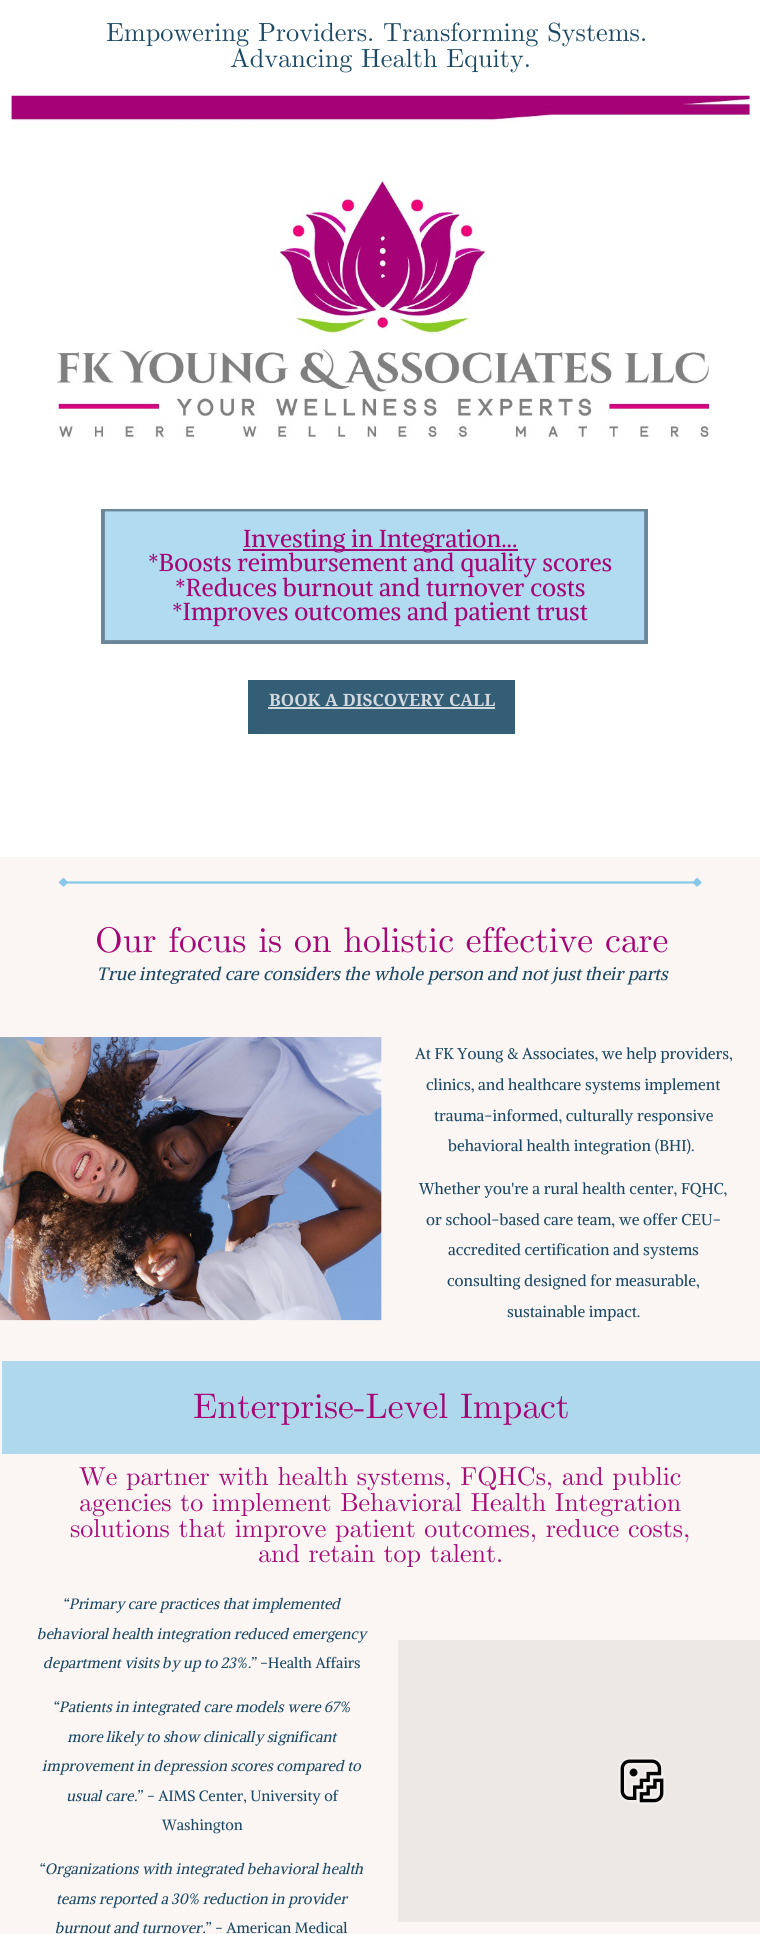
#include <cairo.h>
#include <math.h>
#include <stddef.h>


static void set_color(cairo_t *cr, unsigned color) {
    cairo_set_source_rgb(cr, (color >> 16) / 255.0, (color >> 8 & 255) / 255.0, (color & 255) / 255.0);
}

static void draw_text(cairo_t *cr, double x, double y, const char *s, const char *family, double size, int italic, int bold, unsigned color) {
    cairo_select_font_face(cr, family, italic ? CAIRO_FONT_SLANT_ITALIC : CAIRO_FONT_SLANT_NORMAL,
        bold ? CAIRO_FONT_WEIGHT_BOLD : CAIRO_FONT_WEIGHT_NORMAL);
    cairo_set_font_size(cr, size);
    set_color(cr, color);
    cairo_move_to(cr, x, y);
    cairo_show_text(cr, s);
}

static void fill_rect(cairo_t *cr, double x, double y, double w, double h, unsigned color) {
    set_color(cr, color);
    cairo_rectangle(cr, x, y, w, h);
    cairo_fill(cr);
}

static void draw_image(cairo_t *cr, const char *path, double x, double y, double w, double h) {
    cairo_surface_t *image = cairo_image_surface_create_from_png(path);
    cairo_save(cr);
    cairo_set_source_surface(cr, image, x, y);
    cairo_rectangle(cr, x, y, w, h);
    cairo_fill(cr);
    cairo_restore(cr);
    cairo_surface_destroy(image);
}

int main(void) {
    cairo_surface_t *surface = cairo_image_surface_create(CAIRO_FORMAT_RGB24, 760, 1934);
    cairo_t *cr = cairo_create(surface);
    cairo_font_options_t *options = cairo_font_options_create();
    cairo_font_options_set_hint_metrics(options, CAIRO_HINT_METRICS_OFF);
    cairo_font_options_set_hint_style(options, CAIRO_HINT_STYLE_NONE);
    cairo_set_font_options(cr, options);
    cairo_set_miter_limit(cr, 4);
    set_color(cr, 0xFFFFFF);
    cairo_paint(cr);
    draw_text(cr, 106, 41, "Empowering Providers. Transforming Systems.", "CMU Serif", 26.25, 0, 0, 0x1B4965);
    draw_text(cr, 230, 67, "Advancing Health Equity.", "CMU Serif", 26.25, 0, 0, 0x1B4965);
    draw_image(cr, "assets/img1.png", 11, 95, 739, 343);
    fill_rect(cr, 104, 511, 541, 130, 0xB0DBF0);
    cairo_save(cr);
    cairo_rectangle(cr, 101, 509, 547, 137);
    cairo_clip(cr);
    cairo_new_path(cr);
    cairo_move_to(cr, 101, 507.5);
    cairo_line_to(cr, 648, 507.5);
    cairo_line_to(cr, 648, 644);
    cairo_line_to(cr, 101, 644);
    cairo_close_path(cr);
    cairo_clip(cr);
    cairo_new_path(cr);
    cairo_move_to(cr, 101, 507.5);
    cairo_line_to(cr, 648, 507.5);
    cairo_line_to(cr, 648, 644);
    cairo_line_to(cr, 101, 644);
    cairo_close_path(cr);
    set_color(cr, 0x698799);
    cairo_set_line_width(cr, 7.8);
    cairo_stroke(cr);
    cairo_restore(cr);
    fill_rect(cr, 243, 549, 275, 2, 0xA40775);
    draw_text(cr, 243, 547, "Investing in Integration...", "Alike", 24.5, 0, 0, 0xA40775);
    draw_text(cr, 148, 571, "*Boosts reimbursement and quality scores", "Alike", 24.5, 0, 0, 0xA40775);
    draw_text(cr, 175, 596, "*Reduces burnout and turnover costs", "Alike", 24.5, 0, 0, 0xA40775);
    draw_text(cr, 172, 620, "*Improves outcomes and patient trust", "Alike", 24.5, 0, 0, 0xA40775);
    fill_rect(cr, 248, 680, 267, 54, 0x345D76);
    draw_text(cr, 269, 706, "BOOK A DISCOVERY CALL", "Noto Serif Devanagari", 17, 0, 1, 0xD1D9DE);
    fill_rect(cr, 268, 707, 227, 2, 0xD1D9DE);
    fill_rect(cr, 0, 857, 760, 1077, 0xFBF6F3);
    cairo_new_path(cr);
    cairo_move_to(cr, 66, 882.5);
    cairo_line_to(cr, 694.5, 882.5);
    set_color(cr, 0x88C9E8);
    cairo_set_line_width(cr, 2.2);
    cairo_stroke(cr);
    cairo_new_path(cr);
    cairo_move_to(cr, 60, 882.5);
    cairo_line_to(cr, 63.5, 879);
    cairo_line_to(cr, 66.5, 882.5);
    cairo_line_to(cr, 63.5, 885.5);
    cairo_close_path(cr);
    cairo_fill_preserve(cr);
    cairo_set_line_cap(cr, CAIRO_LINE_CAP_ROUND);
    cairo_set_line_join(cr, CAIRO_LINE_JOIN_ROUND);
    cairo_stroke(cr);
    cairo_new_path(cr);
    cairo_move_to(cr, 700.5, 882.5);
    cairo_line_to(cr, 697, 879);
    cairo_line_to(cr, 694, 882.5);
    cairo_line_to(cr, 697, 885.5);
    cairo_close_path(cr);
    cairo_fill_preserve(cr);
    cairo_stroke(cr);
    draw_text(cr, 95, 952, "Our focus is on holistic effective care", "CMU Serif", 35.6, 0, 0, 0xA40775);
    draw_text(cr, 98, 980, "True integrated care considers the whole person and not just their parts", "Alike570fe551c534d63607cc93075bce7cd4", 17.8, 1, 0, 0x1B4965);
    draw_image(cr, "assets/img2.png", 0, 1037, 382, 284);
    draw_text(cr, 415, 1059, "At FK Young & Associates, we help providers,", "Alike", 15.6, 0, 0, 0x1B4965);
    draw_text(cr, 426, 1090, "clinics, and healthcare systems implement", "Alike", 15.6, 0, 0, 0x1B4965);
    draw_text(cr, 434, 1121, "trauma-informed, culturally responsive", "Alike", 15.6, 0, 0, 0x1B4965);
    draw_text(cr, 448, 1151, "behavioral health integration (BHI).", "Alike", 15.6, 0, 0, 0x1B4965);
    draw_text(cr, 419, 1194, "Whether you're a rural health center, FQHC,", "Alike", 15.6, 0, 0, 0x1B4965);
    draw_text(cr, 426, 1225, "or school-based care team, we offer CEU-", "Alike", 15.6, 0, 0, 0x1B4965);
    draw_text(cr, 448, 1255, "accredited certification and systems", "Alike", 15.6, 0, 0, 0x1B4965);
    draw_text(cr, 447, 1286, "consulting designed for measurable,", "Alike", 15.6, 0, 0, 0x1B4965);
    draw_text(cr, 507, 1317, "sustainable impact.", "Alike", 15.6, 0, 0, 0x1B4965);
    fill_rect(cr, 2, 1361, 758, 93, 0xAFD8EC);
    draw_text(cr, 193, 1418, "Enterprise-Level Impact", "CMU Serif", 35.6, 0, 0, 0xA40775);
    draw_text(cr, 79, 1485, "We partner with health systems, FQHCs, and public", "CMU Serif", 26, 0, 0, 0xA60D78);
    draw_text(cr, 79, 1511, "agencies to implement Behavioral Health Integration", "CMU Serif", 26, 0, 0, 0xA60D78);
    draw_text(cr, 70, 1537, "solutions that improve patient outcomes, reduce costs,", "CMU Serif", 26, 0, 0, 0xA60D78);
    draw_text(cr, 258, 1562, "and retain top talent.", "CMU Serif", 26, 0, 0, 0xA60D78);
    draw_text(cr, 64, 1609, "“Primary care practices that implemented", "Alike570fe551c534d63607cc93075bce7cd4", 14.85, 1, 0, 0x1B4965);
    draw_text(cr, 38, 1639, "behavioral health integration reduced emergency", "Alike570fe551c534d63607cc93075bce7cd4", 14.85, 1, 0, 0x1B4965);
    draw_text(cr, 44, 1668, "department visits by up to 23%.”", "Alike570fe551c534d63607cc93075bce7cd4", 14.85, 1, 0, 0x1B4965);
    draw_text(cr, 260, 1668, "-Health Affairs", "Alike", 14.85, 0, 0, 0x1B4965);
    draw_text(cr, 54, 1712, "“Patients in integrated care models were 67%", "Alike570fe551c534d63607cc93075bce7cd4", 14.85, 1, 0, 0x1B4965);
    draw_text(cr, 68, 1742, "more likely to show clinically significant", "Alike570fe551c534d63607cc93075bce7cd4", 14.85, 1, 0, 0x1B4965);
    draw_text(cr, 43, 1771, "improvement in depression scores compared to", "Alike570fe551c534d63607cc93075bce7cd4", 14.85, 1, 0, 0x1B4965);
    draw_text(cr, 67, 1801, "usual care.”", "Alike570fe551c534d63607cc93075bce7cd4", 14.85, 1, 0, 0x1B4965);
    draw_text(cr, 147, 1801, "- AIMS Center, University of", "Alike", 14.85, 0, 0, 0x1B4965);
    draw_text(cr, 162, 1830, "Washington", "Alike", 14.85, 0, 0, 0x1B4965);
    draw_text(cr, 40, 1874, "“Organizations with integrated behavioral health", "Alike570fe551c534d63607cc93075bce7cd4", 14.85, 1, 0, 0x1B4965);
    draw_text(cr, 57, 1904, "teams reported a 30% reduction in provider", "Alike570fe551c534d63607cc93075bce7cd4", 14.85, 1, 0, 0x1B4965);
    draw_text(cr, 56, 1933, "burnout and turnover.”", "Alike570fe551c534d63607cc93075bce7cd4", 14.85, 1, 0, 0x1B4965);
    draw_text(cr, 215, 1933, "- American Medical", "Alike", 14.85, 0, 0, 0x1B4965);
    fill_rect(cr, 398, 1640, 362, 282, 0xECE8E6);
    draw_image(cr, "assets/img3.png", 618, 1757, 48, 48);
    cairo_surface_write_to_png(surface, "output.png");
    cairo_font_options_destroy(options);
    cairo_destroy(cr);
    cairo_surface_destroy(surface);
    return 0;
}
